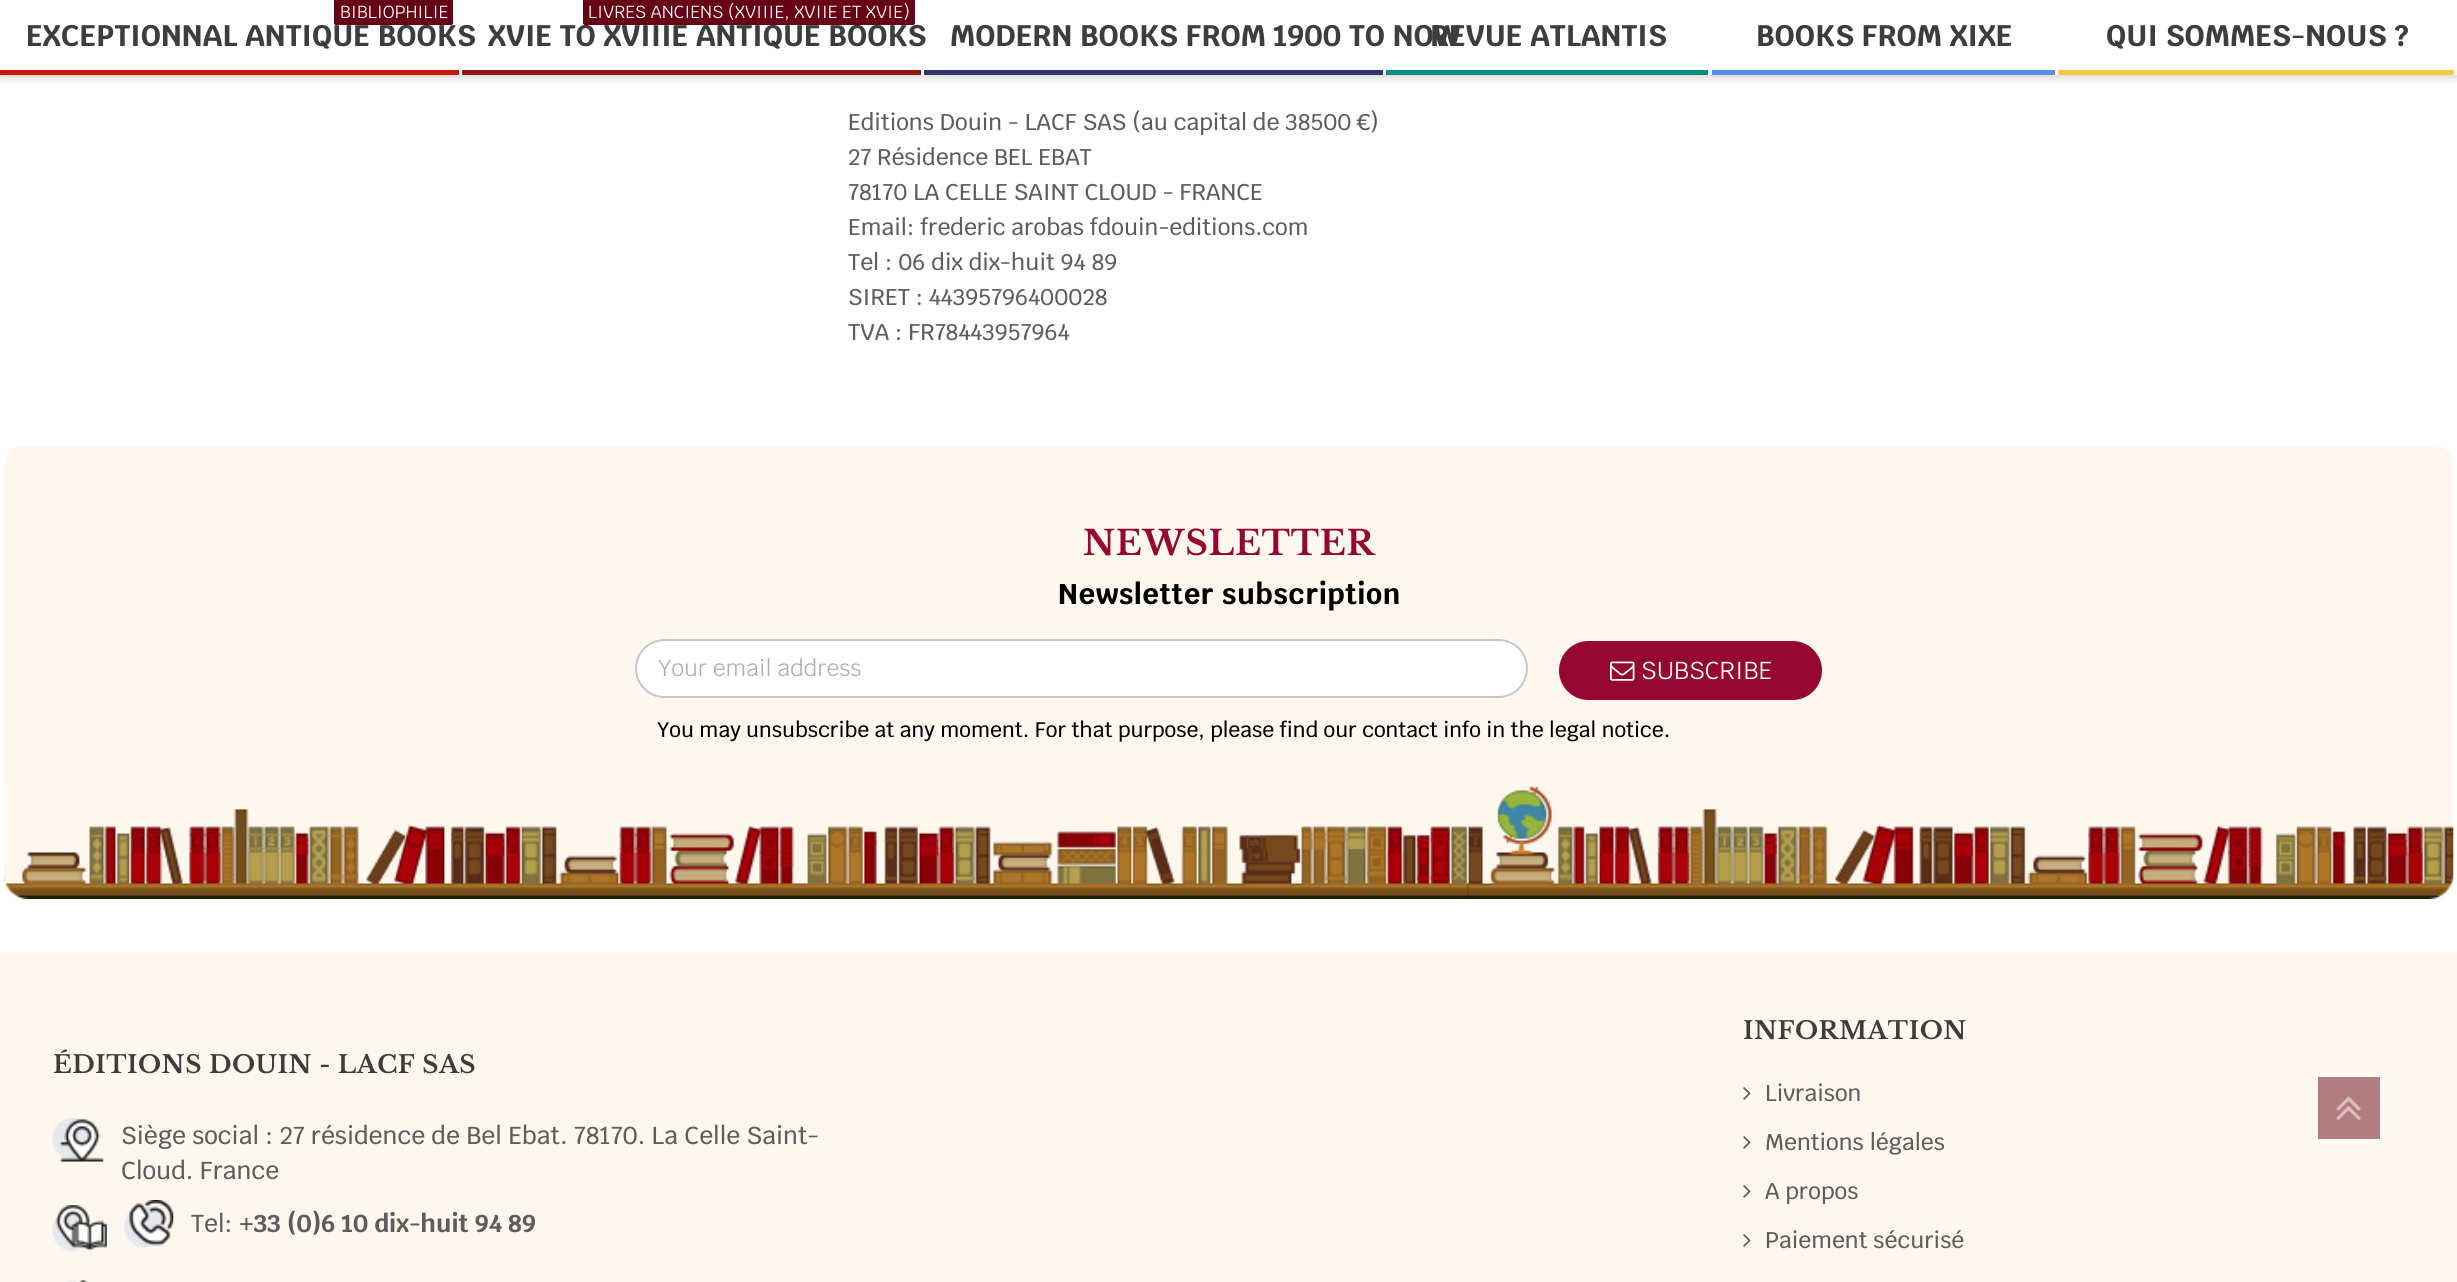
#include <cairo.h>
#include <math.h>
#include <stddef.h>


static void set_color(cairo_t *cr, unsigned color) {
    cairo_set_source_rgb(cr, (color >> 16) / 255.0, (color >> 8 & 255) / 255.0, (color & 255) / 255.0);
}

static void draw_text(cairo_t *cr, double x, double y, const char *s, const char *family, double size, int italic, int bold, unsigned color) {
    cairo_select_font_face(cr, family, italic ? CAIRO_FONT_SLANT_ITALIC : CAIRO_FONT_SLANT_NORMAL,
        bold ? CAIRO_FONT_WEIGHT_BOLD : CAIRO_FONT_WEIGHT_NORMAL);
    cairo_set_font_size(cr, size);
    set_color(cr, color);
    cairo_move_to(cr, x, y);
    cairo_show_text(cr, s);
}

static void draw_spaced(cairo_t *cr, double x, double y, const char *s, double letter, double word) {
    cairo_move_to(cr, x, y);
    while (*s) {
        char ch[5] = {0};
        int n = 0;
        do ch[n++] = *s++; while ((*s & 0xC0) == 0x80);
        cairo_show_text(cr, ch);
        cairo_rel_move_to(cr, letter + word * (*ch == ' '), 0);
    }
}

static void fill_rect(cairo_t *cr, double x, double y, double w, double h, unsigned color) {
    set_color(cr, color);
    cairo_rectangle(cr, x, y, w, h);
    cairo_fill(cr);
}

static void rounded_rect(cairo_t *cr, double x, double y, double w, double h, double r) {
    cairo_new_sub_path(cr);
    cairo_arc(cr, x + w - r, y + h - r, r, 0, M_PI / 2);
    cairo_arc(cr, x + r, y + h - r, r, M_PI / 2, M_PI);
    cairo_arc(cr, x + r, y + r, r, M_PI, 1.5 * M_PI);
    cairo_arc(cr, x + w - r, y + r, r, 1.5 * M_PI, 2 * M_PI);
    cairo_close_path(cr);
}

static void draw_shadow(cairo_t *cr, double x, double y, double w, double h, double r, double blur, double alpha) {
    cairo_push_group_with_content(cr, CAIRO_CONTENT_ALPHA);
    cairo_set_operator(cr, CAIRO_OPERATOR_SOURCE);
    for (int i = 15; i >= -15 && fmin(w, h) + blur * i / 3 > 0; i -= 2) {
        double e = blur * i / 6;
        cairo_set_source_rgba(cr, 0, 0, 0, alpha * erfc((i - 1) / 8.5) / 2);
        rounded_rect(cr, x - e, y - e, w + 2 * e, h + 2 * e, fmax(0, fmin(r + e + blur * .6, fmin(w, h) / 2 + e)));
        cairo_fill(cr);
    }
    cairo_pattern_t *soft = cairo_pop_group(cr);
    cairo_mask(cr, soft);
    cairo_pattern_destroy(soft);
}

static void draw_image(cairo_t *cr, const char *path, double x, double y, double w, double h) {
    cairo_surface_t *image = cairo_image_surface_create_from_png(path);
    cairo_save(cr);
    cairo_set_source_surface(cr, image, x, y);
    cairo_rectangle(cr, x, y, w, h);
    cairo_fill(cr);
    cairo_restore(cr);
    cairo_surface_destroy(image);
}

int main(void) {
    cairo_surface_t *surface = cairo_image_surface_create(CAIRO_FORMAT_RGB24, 2457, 1282);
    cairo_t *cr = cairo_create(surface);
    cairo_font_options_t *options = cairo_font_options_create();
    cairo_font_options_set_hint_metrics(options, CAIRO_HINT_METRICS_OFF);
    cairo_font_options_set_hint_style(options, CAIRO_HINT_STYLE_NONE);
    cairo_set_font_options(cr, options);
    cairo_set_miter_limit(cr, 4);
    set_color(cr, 0xFFFFFF);
    cairo_paint(cr);
    set_color(cr, 0x000000);
    draw_shadow(cr, 0, 2, 2457, 75, 0, 4.5, 0.2);
    fill_rect(cr, 0, 0, 2457, 75, 0xFFFFFF);
    draw_text(cr, 26, 46, "EXCEPTIONNAL ANTIQUE BOOKS", "Krub", 29.75, 0, 1, 0x3D3D3D);
    set_color(cr, 0x670014);
    rounded_rect(cr, 334, -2, 119, 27, 2);
    cairo_fill(cr);
    draw_text(cr, 340, 18, "BIBLIOPHILIE", "Krub", 17.5, 0, 0, 0xFFFFFF);
    fill_rect(cr, 0, 70, 459, 5, 0xC71707);
    draw_text(cr, 488, 46, "XVIE TO XVIIIE ANTIQUE BOOKS", "Krub", 29.75, 0, 1, 0x3D3D3D);
    set_color(cr, 0x670014);
    rounded_rect(cr, 583, -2, 332, 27, 2);
    cairo_fill(cr);
    draw_text(cr, 588, 18, "LIVRES ANCIENS (XVIIIE, XVIIE ET XVIE)", "Krub", 17.5, 0, 0, 0xFFFFFF);
    fill_rect(cr, 462, 70, 459, 5, 0x941313);
    draw_text(cr, 950, 46, "MODERN BOOKS FROM 1900 TO NOW", "Krub", 29.75, 0, 1, 0x3D3D3D);
    fill_rect(cr, 924, 70, 459, 5, 0x32346C);
    draw_text(cr, 1430, 46, "REVUE ATLANTIS", "Krub", 29.75, 0, 1, 0x3D3D3D);
    fill_rect(cr, 1386, 70, 322, 5, 0x088B80);
    draw_text(cr, 1756, 46, "BOOKS FROM XIXE", "Krub", 29.75, 0, 1, 0x3D3D3D);
    fill_rect(cr, 1712, 70, 343, 5, 0x558FE6);
    draw_text(cr, 2106, 46, "QUI SOMMES-NOUS ?", "Krub", 29.75, 0, 1, 0x3D3D3D);
    fill_rect(cr, 2058, 70, 396, 5, 0xFFC740);
    draw_text(cr, 848, 130, "Editions Douin - LACF SAS (au capital de 38500 €)", "Krub Medium", 22.75, 0, 0, 0x5D5D5D);
    draw_text(cr, 848, 165, "27 Résidence BEL EBAT", "Krub Medium", 22.75, 0, 0, 0x5D5D5D);
    draw_text(cr, 848, 200, "78170 LA CELLE SAINT CLOUD - FRANCE", "Krub Medium", 22.75, 0, 0, 0x5D5D5D);
    draw_text(cr, 848, 235, "Email: frederic arobas fdouin-editions.com", "Krub Medium", 22.75, 0, 0, 0x5D5D5D);
    draw_text(cr, 848, 270, "Tel : 06 dix dix-huit 94 89", "Krub Medium", 22.75, 0, 0, 0x5D5D5D);
    draw_text(cr, 848, 305, "SIRET : 44395796400028", "Krub Medium", 22.75, 0, 0, 0x5D5D5D);
    draw_text(cr, 848, 340, "TVA : FR78443957964", "Krub Medium", 22.75, 0, 0, 0x5D5D5D);
    set_color(cr, 0xFDF7ED);
    rounded_rect(cr, 4, 446, 2450, 454, 18);
    cairo_fill(cr);
    draw_image(cr, "assets/img1.png", 3, 786, 2451, 113);
    cairo_select_font_face(cr, "Libre Baskerville", CAIRO_FONT_SLANT_NORMAL, CAIRO_FONT_WEIGHT_BOLD);
    cairo_set_font_size(cr, 34.1);
    set_color(cr, 0x940732);
    draw_spaced(cr, 1083, 555, "NEWSLETTER", 0.75, 0);
    cairo_select_font_face(cr, "Krub", CAIRO_FONT_SLANT_NORMAL, CAIRO_FONT_WEIGHT_BOLD);
    cairo_set_font_size(cr, 28.5);
    set_color(cr, 0x000000);
    draw_spaced(cr, 1058, 604, "Newsletter subscription", 0.6, 0);
    set_color(cr, 0xFFFFFF);
    rounded_rect(cr, 636, 640, 891, 57, 28.5);
    cairo_fill_preserve(cr);
    set_color(cr, 0xC7C7C7);
    cairo_stroke(cr);
    draw_text(cr, 658, 676, "Your email address", "Krub", 22.75, 0, 0, 0xAEAEAE);
    set_color(cr, 0x940732);
    rounded_rect(cr, 1559, 641, 263, 59, 29.5);
    cairo_fill(cr);
    draw_image(cr, "assets/img2.png", 1610, 661, 25, 20);
    draw_text(cr, 1641, 679, "SUBSCRIBE", "Krub", 24.5, 0, 0, 0xFFFFFF);
    draw_text(cr, 657, 737, "You may unsubscribe at any moment. For that purpose, please find our contact info in the legal notice.", "Krub Medium", 20.95, 0, 0, 0x000000);
    fill_rect(cr, 0, 952, 2457, 330, 0xFDF7ED);
    cairo_select_font_face(cr, "Libre Baskerville", CAIRO_FONT_SLANT_NORMAL, CAIRO_FONT_WEIGHT_BOLD);
    cairo_set_font_size(cr, 24.5);
    set_color(cr, 0x3D3D3D);
    draw_spaced(cr, 53, 1073, "ÉDITIONS DOUIN - LACF SAS", 0.5, 0);
    draw_image(cr, "assets/img3.png", 52, 1117, 52, 45);
    draw_text(cr, 121, 1144, "Siège social : 27 résidence de Bel Ebat. 78170. La Celle Saint-", "Krub Medium", 24.5, 0, 0, 0x5D5D5D);
    draw_text(cr, 121, 1179, "Cloud. France", "Krub Medium", 24.5, 0, 0, 0x5D5D5D);
    draw_image(cr, "assets/img4.png", 52, 1205, 55, 46);
    draw_image(cr, "assets/img5.png", 124, 1200, 50, 48);
    draw_text(cr, 191, 1232, "Tel:", "Krub Medium", 24.5, 0, 0, 0x5D5D5D);
    draw_text(cr, 239, 1232, "+33 (0)6 10 dix-huit 94 89", "Krub", 24.5, 0, 1, 0x5D5D5D);
    draw_image(cr, "assets/img6.png", 66, 1280, 22, 2);
    cairo_select_font_face(cr, "Libre Baskerville", CAIRO_FONT_SLANT_NORMAL, CAIRO_FONT_WEIGHT_BOLD);
    set_color(cr, 0x3D3D3D);
    draw_spaced(cr, 1743, 1039, "INFORMATION", 0.5, 0);
    draw_image(cr, "assets/img7.png", 1743, 1087, 8, 13);
    draw_text(cr, 1765, 1101, "Livraison", "Krub Medium", 22.75, 0, 0, 0x5D5D5D);
    draw_image(cr, "assets/img7.png", 1743, 1136, 8, 13);
    draw_text(cr, 1765, 1150, "Mentions légales", "Krub Medium", 22.75, 0, 0, 0x5D5D5D);
    draw_image(cr, "assets/img7.png", 1743, 1185, 8, 13);
    draw_text(cr, 1765, 1199, "A propos", "Krub Medium", 22.75, 0, 0, 0x5D5D5D);
    draw_image(cr, "assets/img7.png", 1743, 1234, 8, 13);
    draw_text(cr, 1765, 1248, "Paiement sécurisé", "Krub Medium", 22.75, 0, 0, 0x5D5D5D);
    set_color(cr, 0xB27C81);
    cairo_rectangle(cr, 2316, 1075, 66, 66);
    cairo_fill_preserve(cr);
    set_color(cr, 0xFEFBF6);
    cairo_set_line_width(cr, 4);
    cairo_stroke(cr);
    draw_image(cr, "assets/img8.png", 2336, 1096, 25, 24);
    cairo_surface_write_to_png(surface, "output.png");
    cairo_font_options_destroy(options);
    cairo_destroy(cr);
    cairo_surface_destroy(surface);
    return 0;
}
